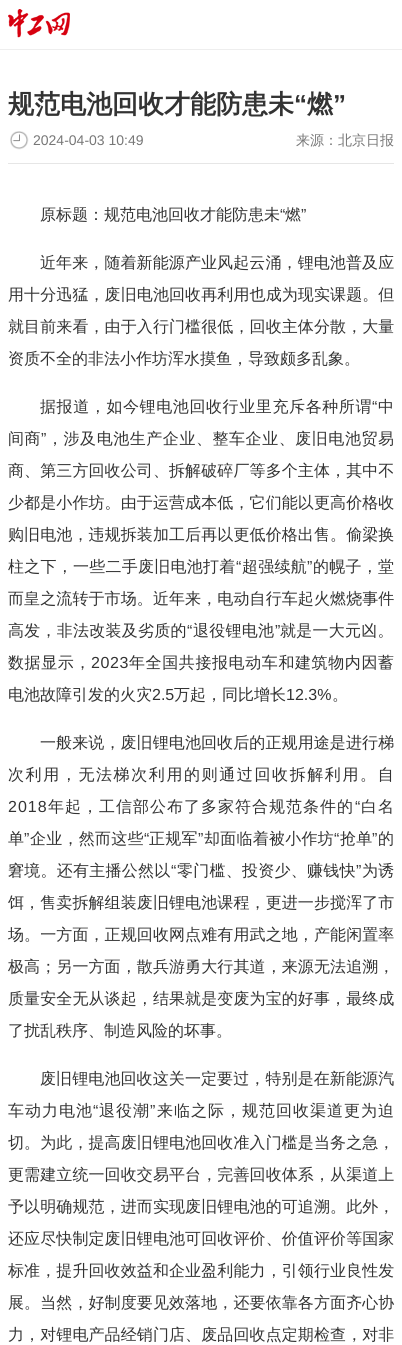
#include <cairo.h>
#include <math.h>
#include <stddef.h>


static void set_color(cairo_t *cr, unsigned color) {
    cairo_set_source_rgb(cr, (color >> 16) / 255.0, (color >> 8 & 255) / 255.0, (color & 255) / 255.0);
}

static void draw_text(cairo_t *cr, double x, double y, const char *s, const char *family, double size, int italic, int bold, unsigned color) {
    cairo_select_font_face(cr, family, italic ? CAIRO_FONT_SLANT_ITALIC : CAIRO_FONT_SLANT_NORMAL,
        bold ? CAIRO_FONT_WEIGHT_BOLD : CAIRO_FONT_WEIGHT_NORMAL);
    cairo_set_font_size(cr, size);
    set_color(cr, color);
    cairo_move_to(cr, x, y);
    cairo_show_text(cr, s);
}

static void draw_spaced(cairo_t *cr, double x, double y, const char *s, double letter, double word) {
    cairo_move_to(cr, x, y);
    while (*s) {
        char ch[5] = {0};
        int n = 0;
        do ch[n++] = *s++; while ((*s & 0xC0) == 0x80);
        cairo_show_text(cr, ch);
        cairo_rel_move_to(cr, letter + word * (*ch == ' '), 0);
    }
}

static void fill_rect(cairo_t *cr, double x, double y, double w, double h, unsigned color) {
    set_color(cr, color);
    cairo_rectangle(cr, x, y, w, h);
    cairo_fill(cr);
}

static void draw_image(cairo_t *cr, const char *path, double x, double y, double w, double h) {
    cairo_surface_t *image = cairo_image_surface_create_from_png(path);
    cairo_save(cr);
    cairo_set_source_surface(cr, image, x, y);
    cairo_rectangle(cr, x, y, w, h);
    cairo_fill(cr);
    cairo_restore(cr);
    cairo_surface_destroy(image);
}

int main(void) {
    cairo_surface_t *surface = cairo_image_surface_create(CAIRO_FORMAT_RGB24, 402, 1345);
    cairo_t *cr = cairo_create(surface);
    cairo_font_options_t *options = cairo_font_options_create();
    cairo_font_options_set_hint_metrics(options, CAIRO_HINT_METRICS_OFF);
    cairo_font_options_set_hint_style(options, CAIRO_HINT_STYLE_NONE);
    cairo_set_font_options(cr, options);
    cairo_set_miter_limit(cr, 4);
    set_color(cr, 0xFFFFFF);
    cairo_paint(cr);
    fill_rect(cr, 0, 49, 402, 1, 0xEEEEEE);
    draw_image(cr, "assets/img1.png", 8, 9, 62, 29);
    fill_rect(cr, 8, 163, 386, 1, 0xE6E6E6);
    draw_text(cr, 8, 113, "规范电池回收才能防患未", "WenQuanYi Zen Hei", 26, 0, 1, 0x333333);
    draw_text(cr, 294, 113, "“", "Liberation Sans", 26, 0, 1, 0x333333);
    draw_text(cr, 307, 113, "燃", "WenQuanYi Zen Hei", 26, 0, 1, 0x333333);
    draw_text(cr, 333, 113, "”", "Liberation Sans", 26, 0, 1, 0x333333);
    draw_image(cr, "assets/img2.png", 10, 131, 19, 19);
    draw_text(cr, 33, 145, "2024-04-03 10:49", "Liberation Sans", 14, 0, 0, 0x777777);
    draw_text(cr, 296, 145, "来源：北京日报", "WenQuanYi Zen Hei Medium", 14, 0, 0, 0x777777);
    draw_text(cr, 40, 220, "原标题：规范电池回收才能防患未", "WenQuanYi Zen Hei Medium", 16, 0, 0, 0x333333);
    draw_text(cr, 280, 220, "“", "Liberation Sans", 16, 0, 0, 0x333333);
    draw_text(cr, 285, 220, "燃", "WenQuanYi Zen Hei Medium", 16, 0, 0, 0x333333);
    draw_text(cr, 301, 220, "”", "Liberation Sans", 16, 0, 0, 0x333333);
    cairo_select_font_face(cr, "WenQuanYi Zen Hei Medium", CAIRO_FONT_SLANT_NORMAL, CAIRO_FONT_WEIGHT_NORMAL);
    draw_spaced(cr, 40, 268, "近年来，随着新能源产业风起云涌，锂电池普及应", 0.1, 0);
    draw_spaced(cr, 8, 300, "用十分迅猛，废旧电池回收再利用也成为现实课题。但", 0.1, 0);
    draw_spaced(cr, 8, 332, "就目前来看，由于入行门槛很低，回收主体分散，大量", 0.1, 0);
    draw_text(cr, 8, 364, "资质不全的非法小作坊浑水摸鱼，导致颇多乱象。", "WenQuanYi Zen Hei Medium", 16, 0, 0, 0x333333);
    draw_spaced(cr, 40, 412, "据报道，如今锂电池回收行业里充斥各种所谓", 0.6, 0);
    cairo_select_font_face(cr, "Liberation Sans", CAIRO_FONT_SLANT_NORMAL, CAIRO_FONT_WEIGHT_NORMAL);
    draw_spaced(cr, 372, 412, "“", 0.6, 0);
    cairo_select_font_face(cr, "WenQuanYi Zen Hei Medium", CAIRO_FONT_SLANT_NORMAL, CAIRO_FONT_WEIGHT_NORMAL);
    draw_spaced(cr, 378, 412, "中", 0.6, 0);
    draw_spaced(cr, 8, 444, "间商", 0.55, 0);
    cairo_select_font_face(cr, "Liberation Sans", CAIRO_FONT_SLANT_NORMAL, CAIRO_FONT_WEIGHT_NORMAL);
    draw_spaced(cr, 41, 444, "”", 0.55, 0);
    cairo_select_font_face(cr, "WenQuanYi Zen Hei Medium", CAIRO_FONT_SLANT_NORMAL, CAIRO_FONT_WEIGHT_NORMAL);
    draw_spaced(cr, 47, 444, "，涉及电池生产企业、整车企业、废旧电池贸易", 0.55, 0);
    draw_spaced(cr, 8, 476, "商、第三方回收公司、拆解破碎厂等多个主体，其中不", 0.1, 0);
    draw_spaced(cr, 8, 508, "少都是小作坊。由于运营成本低，它们能以更高价格收", 0.1, 0);
    draw_spaced(cr, 8, 540, "购旧电池，违规拆装加工后再以更低价格出售。偷梁换", 0.1, 0);
    draw_spaced(cr, 8, 572, "柱之下，一些二手废旧电池打着", 0.25, 0);
    cairo_select_font_face(cr, "Liberation Sans", CAIRO_FONT_SLANT_NORMAL, CAIRO_FONT_WEIGHT_NORMAL);
    draw_spaced(cr, 236, 572, "“", 0.25, 0);
    cairo_select_font_face(cr, "WenQuanYi Zen Hei Medium", CAIRO_FONT_SLANT_NORMAL, CAIRO_FONT_WEIGHT_NORMAL);
    draw_spaced(cr, 242, 572, "超强续航", 0.25, 0);
    cairo_select_font_face(cr, "Liberation Sans", CAIRO_FONT_SLANT_NORMAL, CAIRO_FONT_WEIGHT_NORMAL);
    draw_spaced(cr, 307, 572, "”", 0.25, 0);
    cairo_select_font_face(cr, "WenQuanYi Zen Hei Medium", CAIRO_FONT_SLANT_NORMAL, CAIRO_FONT_WEIGHT_NORMAL);
    draw_spaced(cr, 313, 572, "的幌子，堂", 0.25, 0);
    draw_spaced(cr, 8, 604, "而皇之流转于市场。近年来，电动自行车起火燃烧事件", 0.1, 0);
    draw_spaced(cr, 8, 636, "高发，非法改装及劣质的", 0.25, 0);
    cairo_select_font_face(cr, "Liberation Sans", CAIRO_FONT_SLANT_NORMAL, CAIRO_FONT_WEIGHT_NORMAL);
    draw_spaced(cr, 187, 636, "“", 0.25, 0);
    cairo_select_font_face(cr, "WenQuanYi Zen Hei Medium", CAIRO_FONT_SLANT_NORMAL, CAIRO_FONT_WEIGHT_NORMAL);
    draw_spaced(cr, 193, 636, "退役锂电池", 0.25, 0);
    cairo_select_font_face(cr, "Liberation Sans", CAIRO_FONT_SLANT_NORMAL, CAIRO_FONT_WEIGHT_NORMAL);
    draw_spaced(cr, 275, 636, "”", 0.25, 0);
    cairo_select_font_face(cr, "WenQuanYi Zen Hei Medium", CAIRO_FONT_SLANT_NORMAL, CAIRO_FONT_WEIGHT_NORMAL);
    draw_spaced(cr, 280, 636, "就是一大元凶。", 0.25, 0);
    draw_spaced(cr, 8, 668, "数据显示，", 0.6, 0);
    cairo_select_font_face(cr, "Liberation Sans", CAIRO_FONT_SLANT_NORMAL, CAIRO_FONT_WEIGHT_NORMAL);
    draw_spaced(cr, 91, 668, "2023", 0.6, 0);
    cairo_select_font_face(cr, "WenQuanYi Zen Hei Medium", CAIRO_FONT_SLANT_NORMAL, CAIRO_FONT_WEIGHT_NORMAL);
    draw_spaced(cr, 129, 668, "年全国共接报电动车和建筑物内因蓄", 0.6, 0);
    draw_text(cr, 8, 700, "电池故障引发的火灾", "WenQuanYi Zen Hei Medium", 16, 0, 0, 0x333333);
    draw_text(cr, 152, 700, "2.5", "Liberation Sans", 16, 0, 0, 0x333333);
    draw_text(cr, 174, 700, "万起，同比增长", "WenQuanYi Zen Hei Medium", 16, 0, 0, 0x333333);
    draw_text(cr, 286, 700, "12.3%", "Liberation Sans", 16, 0, 0, 0x333333);
    draw_text(cr, 332, 700, "。", "WenQuanYi Zen Hei Medium", 16, 0, 0, 0x333333);
    draw_spaced(cr, 40, 748, "一般来说，废旧锂电池回收后的正规用途是进行梯", 0.1, 0);
    draw_spaced(cr, 8, 780, "次利用，无法梯次利用的则通过回收拆解利用。自", 1.6, 0);
    cairo_select_font_face(cr, "Liberation Sans", CAIRO_FONT_SLANT_NORMAL, CAIRO_FONT_WEIGHT_NORMAL);
    draw_spaced(cr, 8, 812, "2018", 1, 0);
    cairo_select_font_face(cr, "WenQuanYi Zen Hei Medium", CAIRO_FONT_SLANT_NORMAL, CAIRO_FONT_WEIGHT_NORMAL);
    draw_spaced(cr, 48, 812, "年起，工信部公布了多家符合规范条件的", 1, 0);
    cairo_select_font_face(cr, "Liberation Sans", CAIRO_FONT_SLANT_NORMAL, CAIRO_FONT_WEIGHT_NORMAL);
    draw_spaced(cr, 355, 812, "“", 1, 0);
    cairo_select_font_face(cr, "WenQuanYi Zen Hei Medium", CAIRO_FONT_SLANT_NORMAL, CAIRO_FONT_WEIGHT_NORMAL);
    draw_spaced(cr, 361, 812, "白名", 1, 0);
    draw_spaced(cr, 8, 844, "单", 0.25, 0);
    cairo_select_font_face(cr, "Liberation Sans", CAIRO_FONT_SLANT_NORMAL, CAIRO_FONT_WEIGHT_NORMAL);
    draw_spaced(cr, 24, 844, "”", 0.25, 0);
    cairo_select_font_face(cr, "WenQuanYi Zen Hei Medium", CAIRO_FONT_SLANT_NORMAL, CAIRO_FONT_WEIGHT_NORMAL);
    draw_spaced(cr, 30, 844, "企业，然而这些", 0.25, 0);
    cairo_select_font_face(cr, "Liberation Sans", CAIRO_FONT_SLANT_NORMAL, CAIRO_FONT_WEIGHT_NORMAL);
    draw_spaced(cr, 144, 844, "“", 0.25, 0);
    cairo_select_font_face(cr, "WenQuanYi Zen Hei Medium", CAIRO_FONT_SLANT_NORMAL, CAIRO_FONT_WEIGHT_NORMAL);
    draw_spaced(cr, 149, 844, "正规军", 0.25, 0);
    cairo_select_font_face(cr, "Liberation Sans", CAIRO_FONT_SLANT_NORMAL, CAIRO_FONT_WEIGHT_NORMAL);
    draw_spaced(cr, 198, 844, "”", 0.25, 0);
    cairo_select_font_face(cr, "WenQuanYi Zen Hei Medium", CAIRO_FONT_SLANT_NORMAL, CAIRO_FONT_WEIGHT_NORMAL);
    draw_spaced(cr, 204, 844, "却面临着被小作坊", 0.25, 0);
    cairo_select_font_face(cr, "Liberation Sans", CAIRO_FONT_SLANT_NORMAL, CAIRO_FONT_WEIGHT_NORMAL);
    draw_spaced(cr, 334, 844, "“", 0.25, 0);
    cairo_select_font_face(cr, "WenQuanYi Zen Hei Medium", CAIRO_FONT_SLANT_NORMAL, CAIRO_FONT_WEIGHT_NORMAL);
    draw_spaced(cr, 340, 844, "抢单", 0.25, 0);
    cairo_select_font_face(cr, "Liberation Sans", CAIRO_FONT_SLANT_NORMAL, CAIRO_FONT_WEIGHT_NORMAL);
    draw_spaced(cr, 372, 844, "”", 0.25, 0);
    cairo_select_font_face(cr, "WenQuanYi Zen Hei Medium", CAIRO_FONT_SLANT_NORMAL, CAIRO_FONT_WEIGHT_NORMAL);
    draw_spaced(cr, 378, 844, "的", 0.25, 0);
    draw_spaced(cr, 8, 876, "窘境。还有主播公然以", 0.25, 0);
    cairo_select_font_face(cr, "Liberation Sans", CAIRO_FONT_SLANT_NORMAL, CAIRO_FONT_WEIGHT_NORMAL);
    draw_spaced(cr, 171, 876, "“", 0.25, 0);
    cairo_select_font_face(cr, "WenQuanYi Zen Hei Medium", CAIRO_FONT_SLANT_NORMAL, CAIRO_FONT_WEIGHT_NORMAL);
    draw_spaced(cr, 177, 876, "零门槛、投资少、赚钱快", 0.25, 0);
    cairo_select_font_face(cr, "Liberation Sans", CAIRO_FONT_SLANT_NORMAL, CAIRO_FONT_WEIGHT_NORMAL);
    draw_spaced(cr, 356, 876, "”", 0.25, 0);
    cairo_select_font_face(cr, "WenQuanYi Zen Hei Medium", CAIRO_FONT_SLANT_NORMAL, CAIRO_FONT_WEIGHT_NORMAL);
    draw_spaced(cr, 362, 876, "为诱", 0.25, 0);
    draw_spaced(cr, 8, 908, "饵，售卖拆解组装废旧锂电池课程，更进一步搅浑了市", 0.1, 0);
    draw_spaced(cr, 8, 940, "场。一方面，正规回收网点难有用武之地，产能闲置率", 0.1, 0);
    draw_spaced(cr, 8, 972, "极高；另一方面，散兵游勇大行其道，来源无法追溯，", 0.1, 0);
    draw_spaced(cr, 8, 1004, "质量安全无从谈起，结果就是变废为宝的好事，最终成", 0.1, 0);
    draw_text(cr, 8, 1036, "了扰乱秩序、制造风险的坏事。", "WenQuanYi Zen Hei Medium", 16, 0, 0, 0x333333);
    draw_spaced(cr, 40, 1084, "废旧锂电池回收这关一定要过，特别是在新能源汽", 0.1, 0);
    draw_spaced(cr, 8, 1116, "车动力电池", 1, 0);
    cairo_select_font_face(cr, "Liberation Sans", CAIRO_FONT_SLANT_NORMAL, CAIRO_FONT_WEIGHT_NORMAL);
    draw_spaced(cr, 93, 1116, "“", 1, 0);
    cairo_select_font_face(cr, "WenQuanYi Zen Hei Medium", CAIRO_FONT_SLANT_NORMAL, CAIRO_FONT_WEIGHT_NORMAL);
    draw_spaced(cr, 99, 1116, "退役潮", 1, 0);
    cairo_select_font_face(cr, "Liberation Sans", CAIRO_FONT_SLANT_NORMAL, CAIRO_FONT_WEIGHT_NORMAL);
    draw_spaced(cr, 150, 1116, "”", 1, 0);
    cairo_select_font_face(cr, "WenQuanYi Zen Hei Medium", CAIRO_FONT_SLANT_NORMAL, CAIRO_FONT_WEIGHT_NORMAL);
    draw_spaced(cr, 157, 1116, "来临之际，规范回收渠道更为迫", 1, 0);
    draw_spaced(cr, 8, 1148, "切。为此，提高废旧锂电池回收准入门槛是当务之急，", 0.1, 0);
    draw_spaced(cr, 8, 1180, "更需建立统一回收交易平台，完善回收体系，从渠道上", 0.1, 0);
    draw_spaced(cr, 8, 1212, "予以明确规范，进而实现废旧锂电池的可追溯。此外，", 0.1, 0);
    draw_spaced(cr, 8, 1244, "还应尽快制定废旧锂电池可回收评价、价值评价等国家", 0.1, 0);
    draw_spaced(cr, 8, 1276, "标准，提升回收效益和企业盈利能力，引领行业良性发", 0.1, 0);
    draw_spaced(cr, 8, 1308, "展。当然，好制度要见效落地，还要依靠各方面齐心协", 0.1, 0);
    draw_spaced(cr, 8, 1340, "力，对锂电产品经销门店、废品回收点定期检查，对非", 0.1, 0);
    cairo_surface_write_to_png(surface, "output.png");
    cairo_font_options_destroy(options);
    cairo_destroy(cr);
    cairo_surface_destroy(surface);
    return 0;
}
